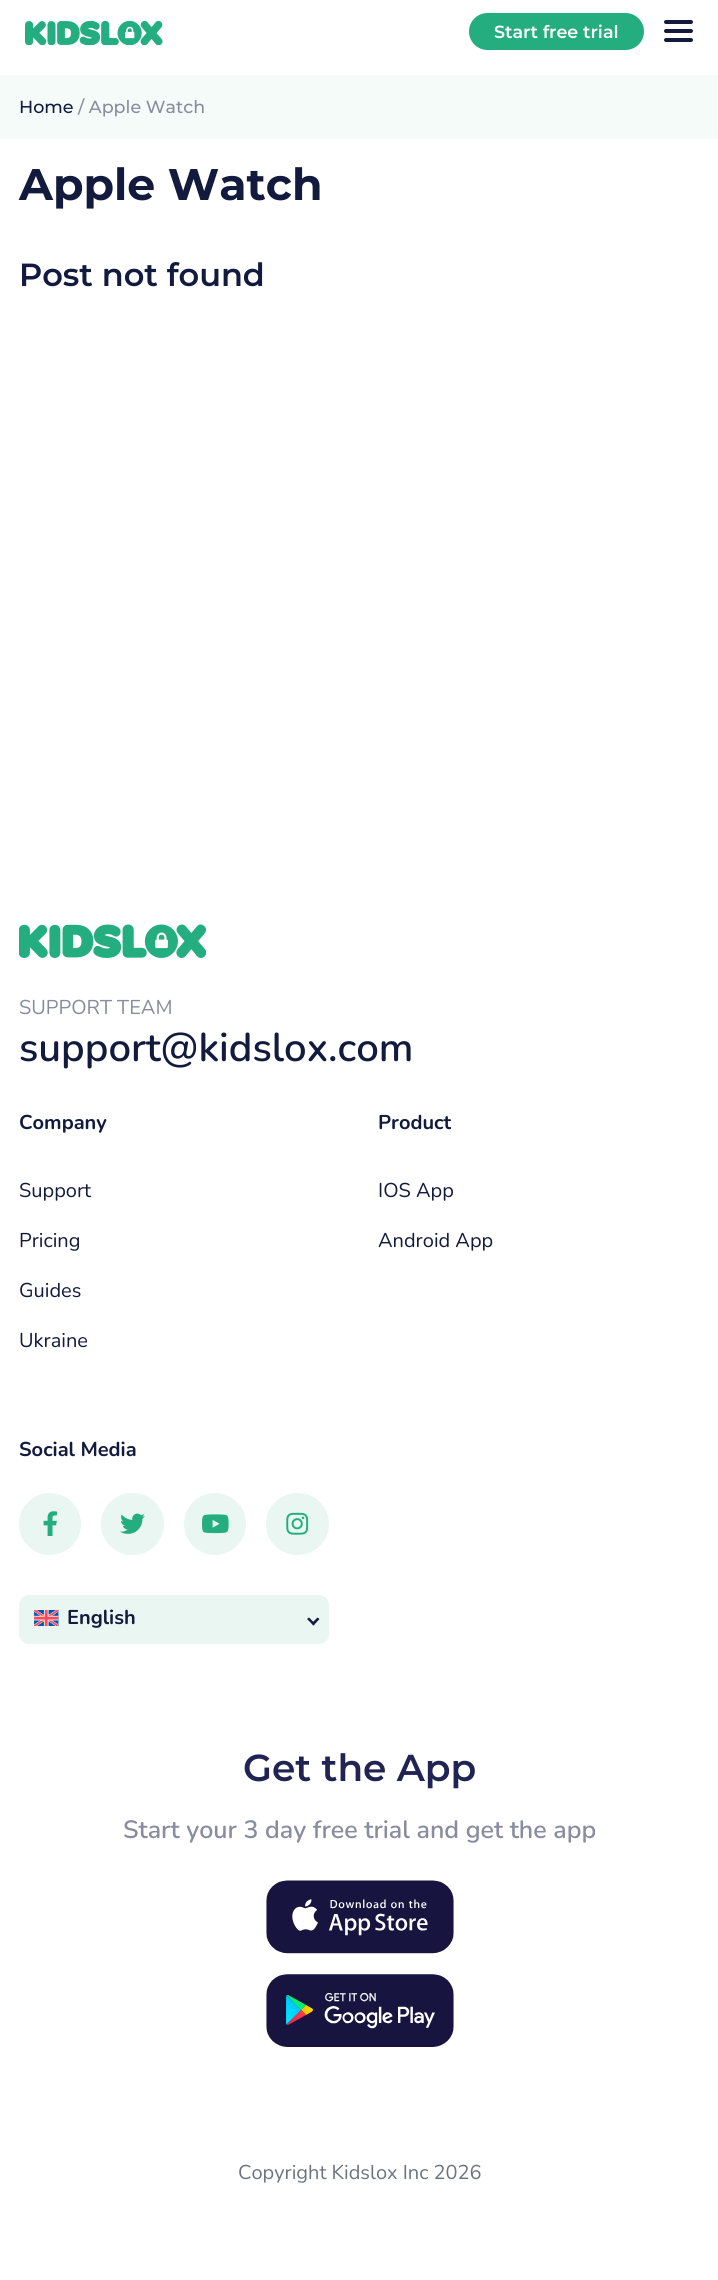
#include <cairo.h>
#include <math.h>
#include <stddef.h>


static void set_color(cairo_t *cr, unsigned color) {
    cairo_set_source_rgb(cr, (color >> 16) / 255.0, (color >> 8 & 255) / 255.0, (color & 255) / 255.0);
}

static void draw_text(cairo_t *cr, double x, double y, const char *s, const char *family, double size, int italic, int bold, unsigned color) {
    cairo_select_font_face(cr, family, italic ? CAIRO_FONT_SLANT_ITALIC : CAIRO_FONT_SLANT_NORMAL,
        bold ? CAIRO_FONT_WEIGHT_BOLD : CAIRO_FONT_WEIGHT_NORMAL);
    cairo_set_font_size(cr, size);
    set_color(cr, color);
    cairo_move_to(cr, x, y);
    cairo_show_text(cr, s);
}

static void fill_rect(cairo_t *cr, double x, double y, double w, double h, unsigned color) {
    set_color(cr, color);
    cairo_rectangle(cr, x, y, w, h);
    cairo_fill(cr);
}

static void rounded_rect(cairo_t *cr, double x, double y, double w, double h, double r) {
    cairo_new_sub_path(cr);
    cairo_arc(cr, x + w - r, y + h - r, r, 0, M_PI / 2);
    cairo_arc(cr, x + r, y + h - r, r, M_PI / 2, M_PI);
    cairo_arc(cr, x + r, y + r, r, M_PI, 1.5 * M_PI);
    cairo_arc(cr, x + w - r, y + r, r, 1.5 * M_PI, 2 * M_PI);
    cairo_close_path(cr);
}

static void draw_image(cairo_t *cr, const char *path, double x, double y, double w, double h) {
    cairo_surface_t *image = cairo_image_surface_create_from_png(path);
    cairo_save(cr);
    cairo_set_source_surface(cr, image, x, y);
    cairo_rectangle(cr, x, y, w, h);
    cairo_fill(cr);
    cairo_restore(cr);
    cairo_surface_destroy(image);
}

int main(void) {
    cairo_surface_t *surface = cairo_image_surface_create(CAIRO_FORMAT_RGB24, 718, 2280);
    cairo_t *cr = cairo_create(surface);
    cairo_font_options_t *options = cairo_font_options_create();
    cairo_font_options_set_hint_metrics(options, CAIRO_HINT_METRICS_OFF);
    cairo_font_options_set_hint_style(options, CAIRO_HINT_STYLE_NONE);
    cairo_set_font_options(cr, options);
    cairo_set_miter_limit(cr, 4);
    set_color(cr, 0xFFFFFF);
    cairo_paint(cr);
    draw_image(cr, "assets/img1.png", 25, 20, 138, 25);
    set_color(cr, 0x24AE80);
    rounded_rect(cr, 470.5, 14.5, 172, 34, 17);
    cairo_fill_preserve(cr);
    cairo_set_line_width(cr, 3);
    cairo_stroke(cr);
    draw_text(cr, 494, 38, "Start free trial", "Montserrat SemiBold", 17.5, 0, 0, 0xFFFFFF);
    set_color(cr, 0x121A3E);
    rounded_rect(cr, 664, 20, 29, 4, 2);
    cairo_fill(cr);
    rounded_rect(cr, 664, 29, 29, 4, 2);
    cairo_fill(cr);
    rounded_rect(cr, 664, 38, 29, 4, 2);
    cairo_fill(cr);
    fill_rect(cr, 0, 75, 718, 64, 0xF4FBF9);
    draw_text(cr, 19, 113, "Home", "Montserrat Medium", 17.5, 0, 0, 0x121A3E);
    draw_text(cr, 78, 113, "/ Apple Watch", "Montserrat Medium", 17.5, 0, 0, 0x888C9E);
    draw_text(cr, 19, 200, "Apple Watch", "Montserrat", 44.25, 0, 1, 0x121A3E);
    draw_text(cr, 19, 286, "Post not found", "Montserrat SemiBold", 32, 0, 0, 0x121A3E);
    draw_image(cr, "assets/img2.png", 19, 924, 187, 34);
    draw_text(cr, 19, 1014, "SUPPORT TEAM", "Nunito", 20, 0, 0, 0x888C9E);
    draw_text(cr, 19, 1061, "support@kidslox.com", "Nunito SemiBold", 40, 0, 0, 0x121A3E);
    draw_text(cr, 19, 1129, "Company", "Nunito", 20, 0, 1, 0x121A3E);
    draw_text(cr, 19, 1197, "Support", "Nunito", 20, 0, 0, 0x121A3E);
    draw_text(cr, 19, 1247, "Pricing", "Nunito", 20, 0, 0, 0x121A3E);
    draw_text(cr, 19, 1297, "Guides", "Nunito", 20, 0, 0, 0x121A3E);
    draw_text(cr, 19, 1347, "Ukraine", "Nunito", 20, 0, 0, 0x121A3E);
    draw_text(cr, 378, 1129, "Product", "Nunito", 20, 0, 1, 0x121A3E);
    draw_text(cr, 378, 1197, "IOS App", "Nunito", 20, 0, 0, 0x121A3E);
    draw_text(cr, 378, 1247, "Android App", "Nunito", 20, 0, 0, 0x121A3E);
    draw_text(cr, 19, 1456, "Social Media", "Nunito", 20, 0, 1, 0x121A3E);
    set_color(cr, 0xE9F6F2);
    cairo_new_path(cr);
    cairo_arc(cr, 50, 1524, 31, 0, 2 * M_PI);
    cairo_fill(cr);
    draw_image(cr, "assets/img3.png", 43, 1511, 14, 25);
    rounded_rect(cr, 101, 1493, 63, 62, 31);
    cairo_fill(cr);
    draw_image(cr, "assets/img4.png", 120, 1513, 25, 21);
    cairo_arc(cr, 215, 1524, 31, 0, 2 * M_PI);
    cairo_fill(cr);
    draw_image(cr, "assets/img5.png", 202, 1514, 27, 20);
    rounded_rect(cr, 266, 1493, 63, 62, 31);
    cairo_fill(cr);
    draw_image(cr, "assets/img6.png", 286, 1512, 23, 23);
    rounded_rect(cr, 19, 1595, 310, 49, 10);
    cairo_fill(cr);
    draw_image(cr, "assets/img7.png", 34, 1610, 25, 16);
    draw_text(cr, 67, 1624, "English", "Nunito", 20, 0, 1, 0x121A3E);
    cairo_new_path(cr);
    cairo_move_to(cr, 317.5, 1617.5);
    cairo_line_to(cr, 319.5, 1619);
    cairo_line_to(cr, 313.5, 1625.5);
    cairo_line_to(cr, 311.5, 1623.5);
    cairo_close_path(cr);
    cairo_fill(cr);
    cairo_new_path(cr);
    cairo_move_to(cr, 309, 1617.5);
    cairo_line_to(cr, 315, 1623.5);
    cairo_line_to(cr, 313.5, 1625.5);
    cairo_line_to(cr, 307, 1619);
    cairo_close_path(cr);
    cairo_fill(cr);
    draw_text(cr, 243, 1781, "Get the App", "Montserrat SemiBold", 37.5, 0, 0, 0x212353);
    draw_text(cr, 123, 1838, "Start your 3 day free trial and get the app", "Nunito SemiBold", 25, 0, 0, 0x888C9E);
    draw_image(cr, "assets/img8.png", 266, 1880, 188, 74);
    draw_image(cr, "assets/img9.png", 266, 1974, 188, 73);
    draw_text(cr, 238, 2179, "Copyright Kidslox Inc 2026", "Nunito", 20, 0, 0, 0x6C757D);
    cairo_surface_write_to_png(surface, "output.png");
    cairo_font_options_destroy(options);
    cairo_destroy(cr);
    cairo_surface_destroy(surface);
    return 0;
}
